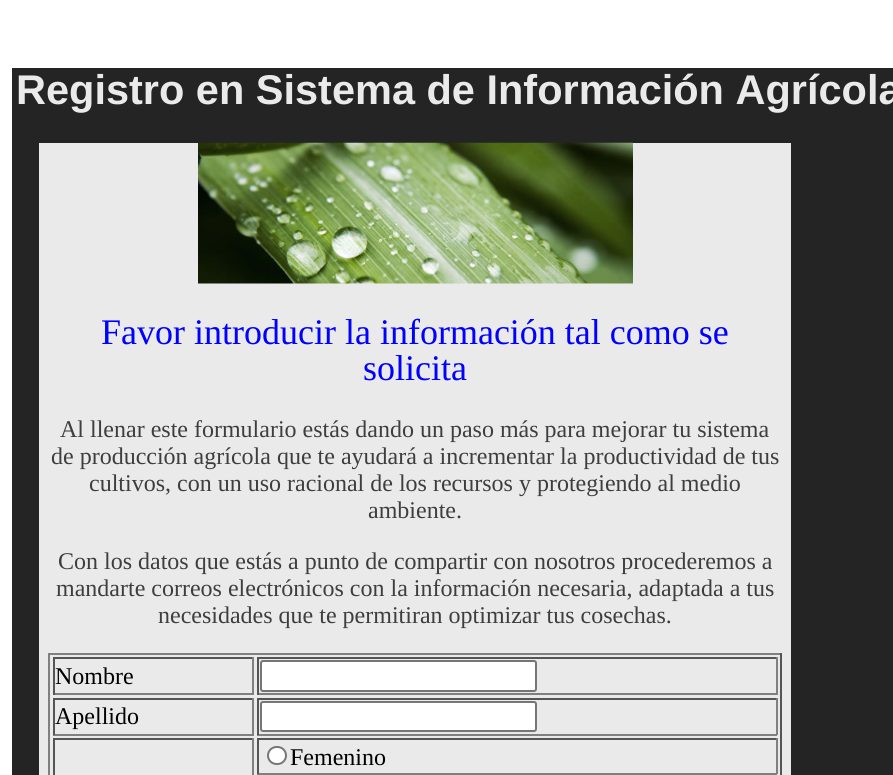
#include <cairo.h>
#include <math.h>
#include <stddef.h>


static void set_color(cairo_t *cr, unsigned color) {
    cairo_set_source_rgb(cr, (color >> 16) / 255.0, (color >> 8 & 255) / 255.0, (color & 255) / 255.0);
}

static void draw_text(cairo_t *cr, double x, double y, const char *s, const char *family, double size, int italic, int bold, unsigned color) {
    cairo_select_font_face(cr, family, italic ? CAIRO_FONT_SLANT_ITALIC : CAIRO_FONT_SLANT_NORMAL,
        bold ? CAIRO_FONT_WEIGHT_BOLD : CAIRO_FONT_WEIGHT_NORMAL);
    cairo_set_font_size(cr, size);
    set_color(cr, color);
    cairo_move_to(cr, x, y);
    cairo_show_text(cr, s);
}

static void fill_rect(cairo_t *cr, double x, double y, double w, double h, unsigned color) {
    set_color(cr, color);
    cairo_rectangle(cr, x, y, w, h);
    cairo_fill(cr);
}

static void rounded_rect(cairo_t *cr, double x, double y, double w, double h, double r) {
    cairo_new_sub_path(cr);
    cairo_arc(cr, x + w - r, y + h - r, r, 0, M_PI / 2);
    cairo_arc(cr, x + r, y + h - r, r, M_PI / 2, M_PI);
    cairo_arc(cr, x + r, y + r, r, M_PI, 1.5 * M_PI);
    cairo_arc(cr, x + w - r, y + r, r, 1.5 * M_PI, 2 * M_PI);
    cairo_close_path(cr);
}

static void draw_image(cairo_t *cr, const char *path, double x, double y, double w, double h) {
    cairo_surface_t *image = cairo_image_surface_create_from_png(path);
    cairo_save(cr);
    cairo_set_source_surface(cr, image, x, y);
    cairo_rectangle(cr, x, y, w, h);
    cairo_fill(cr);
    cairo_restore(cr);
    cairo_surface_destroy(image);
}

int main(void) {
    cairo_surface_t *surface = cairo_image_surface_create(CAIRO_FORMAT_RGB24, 893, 775);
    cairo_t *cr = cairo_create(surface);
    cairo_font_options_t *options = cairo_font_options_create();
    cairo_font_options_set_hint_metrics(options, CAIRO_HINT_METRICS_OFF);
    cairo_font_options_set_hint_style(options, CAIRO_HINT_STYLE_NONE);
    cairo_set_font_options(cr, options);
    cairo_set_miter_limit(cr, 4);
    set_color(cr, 0xFFFFFF);
    cairo_paint(cr);
    fill_rect(cr, 12, 68, 881, 707, 0x242424);
    draw_text(cr, 16, 104, "Registro en Sistema de Información Agrícola", "Liberation Sans", 41.5, 0, 1, 0xEAEAEA);
    fill_rect(cr, 39, 143, 752, 632, 0xEAEAEA);
    draw_image(cr, "assets/img1.png", 198, 142, 435, 142);
    draw_text(cr, 101, 344, "Favor introducir la información tal como se", "Liberation Serif", 36, 0, 0, 0x0000FF);
    draw_text(cr, 363, 380, "solicita", "Liberation Serif", 36, 0, 0, 0x0000FF);
    draw_text(cr, 60, 437, "Al llenar este formulario estás dando un paso más para mejorar tu sistema", "Liberation Serif", 24, 0, 0, 0x3D3E3D);
    draw_text(cr, 51, 464, "de producción agrícola que te ayudará a incrementar la productividad de tus", "Liberation Serif", 24, 0, 0, 0x3D3E3D);
    draw_text(cr, 89, 491, "cultivos, con un uso racional de los recursos y protegiendo al medio", "Liberation Serif", 24, 0, 0, 0x3D3E3D);
    draw_text(cr, 368, 518, "ambiente.", "Liberation Serif", 24, 0, 0, 0x3D3E3D);
    draw_text(cr, 58, 569, "Con los datos que estás a punto de compartir con nosotros procederemos a", "Liberation Serif", 24, 0, 0, 0x3D3E3D);
    draw_text(cr, 56, 596, "mandarte correos electrónicos con la información necesaria, adaptada a tus", "Liberation Serif", 24, 0, 0, 0x3D3E3D);
    draw_text(cr, 158, 623, "necesidades que te permitiran optimizar tus cosechas.", "Liberation Serif", 24, 0, 0, 0x3D3E3D);
    fill_rect(cr, 48, 653, 734, 2, 0x808080);
    fill_rect(cr, 780, 653, 2, 122, 0x555555);
    fill_rect(cr, 48, 653, 2, 122, 0x808080);
    fill_rect(cr, 53, 657, 201, 2, 0x555555);
    fill_rect(cr, 252, 657, 2, 38, 0x808080);
    fill_rect(cr, 53, 693, 201, 2, 0x808080);
    fill_rect(cr, 53, 657, 2, 38, 0x555555);
    draw_text(cr, 55, 684, "Nombre", "Liberation Serif", 24, 0, 0, 0x000000);
    fill_rect(cr, 257, 657, 520, 2, 0x555555);
    fill_rect(cr, 776, 657, 2, 38, 0x808080);
    fill_rect(cr, 257, 693, 520, 2, 0x808080);
    fill_rect(cr, 257, 657, 2, 38, 0x555555);
    set_color(cr, 0xFFFFFF);
    rounded_rect(cr, 261, 661, 275, 30, 2);
    cairo_fill_preserve(cr);
    set_color(cr, 0x767676);
    cairo_stroke(cr);
    fill_rect(cr, 53, 698, 201, 2, 0x555555);
    fill_rect(cr, 252, 698, 2, 37, 0x808080);
    fill_rect(cr, 53, 734, 201, 2, 0x808080);
    fill_rect(cr, 53, 698, 2, 37, 0x555555);
    draw_text(cr, 55, 724, "Apellido", "Liberation Serif", 24, 0, 0, 0x000000);
    fill_rect(cr, 257, 698, 520, 2, 0x555555);
    fill_rect(cr, 776, 698, 2, 37, 0x808080);
    fill_rect(cr, 257, 734, 520, 2, 0x808080);
    fill_rect(cr, 257, 698, 2, 37, 0x555555);
    set_color(cr, 0xFFFFFF);
    rounded_rect(cr, 261, 702, 275, 29, 2);
    cairo_fill_preserve(cr);
    set_color(cr, 0x767676);
    cairo_stroke(cr);
    fill_rect(cr, 53, 738, 201, 2, 0x555555);
    fill_rect(cr, 252, 738, 2, 37, 0x808080);
    fill_rect(cr, 53, 738, 2, 37, 0x555555);
    fill_rect(cr, 257, 738, 520, 2, 0x555555);
    fill_rect(cr, 776, 738, 2, 36, 0x808080);
    fill_rect(cr, 257, 773, 520, 2, 0x808080);
    fill_rect(cr, 257, 738, 2, 36, 0x555555);
    set_color(cr, 0xFFFFFF);
    rounded_rect(cr, 268, 747, 18, 17, 8.5);
    cairo_fill_preserve(cr);
    set_color(cr, 0x767676);
    cairo_stroke(cr);
    draw_text(cr, 290, 765, "Femenino", "Liberation Serif", 24, 0, 0, 0x000000);
    cairo_surface_write_to_png(surface, "output.png");
    cairo_font_options_destroy(options);
    cairo_destroy(cr);
    cairo_surface_destroy(surface);
    return 0;
}
